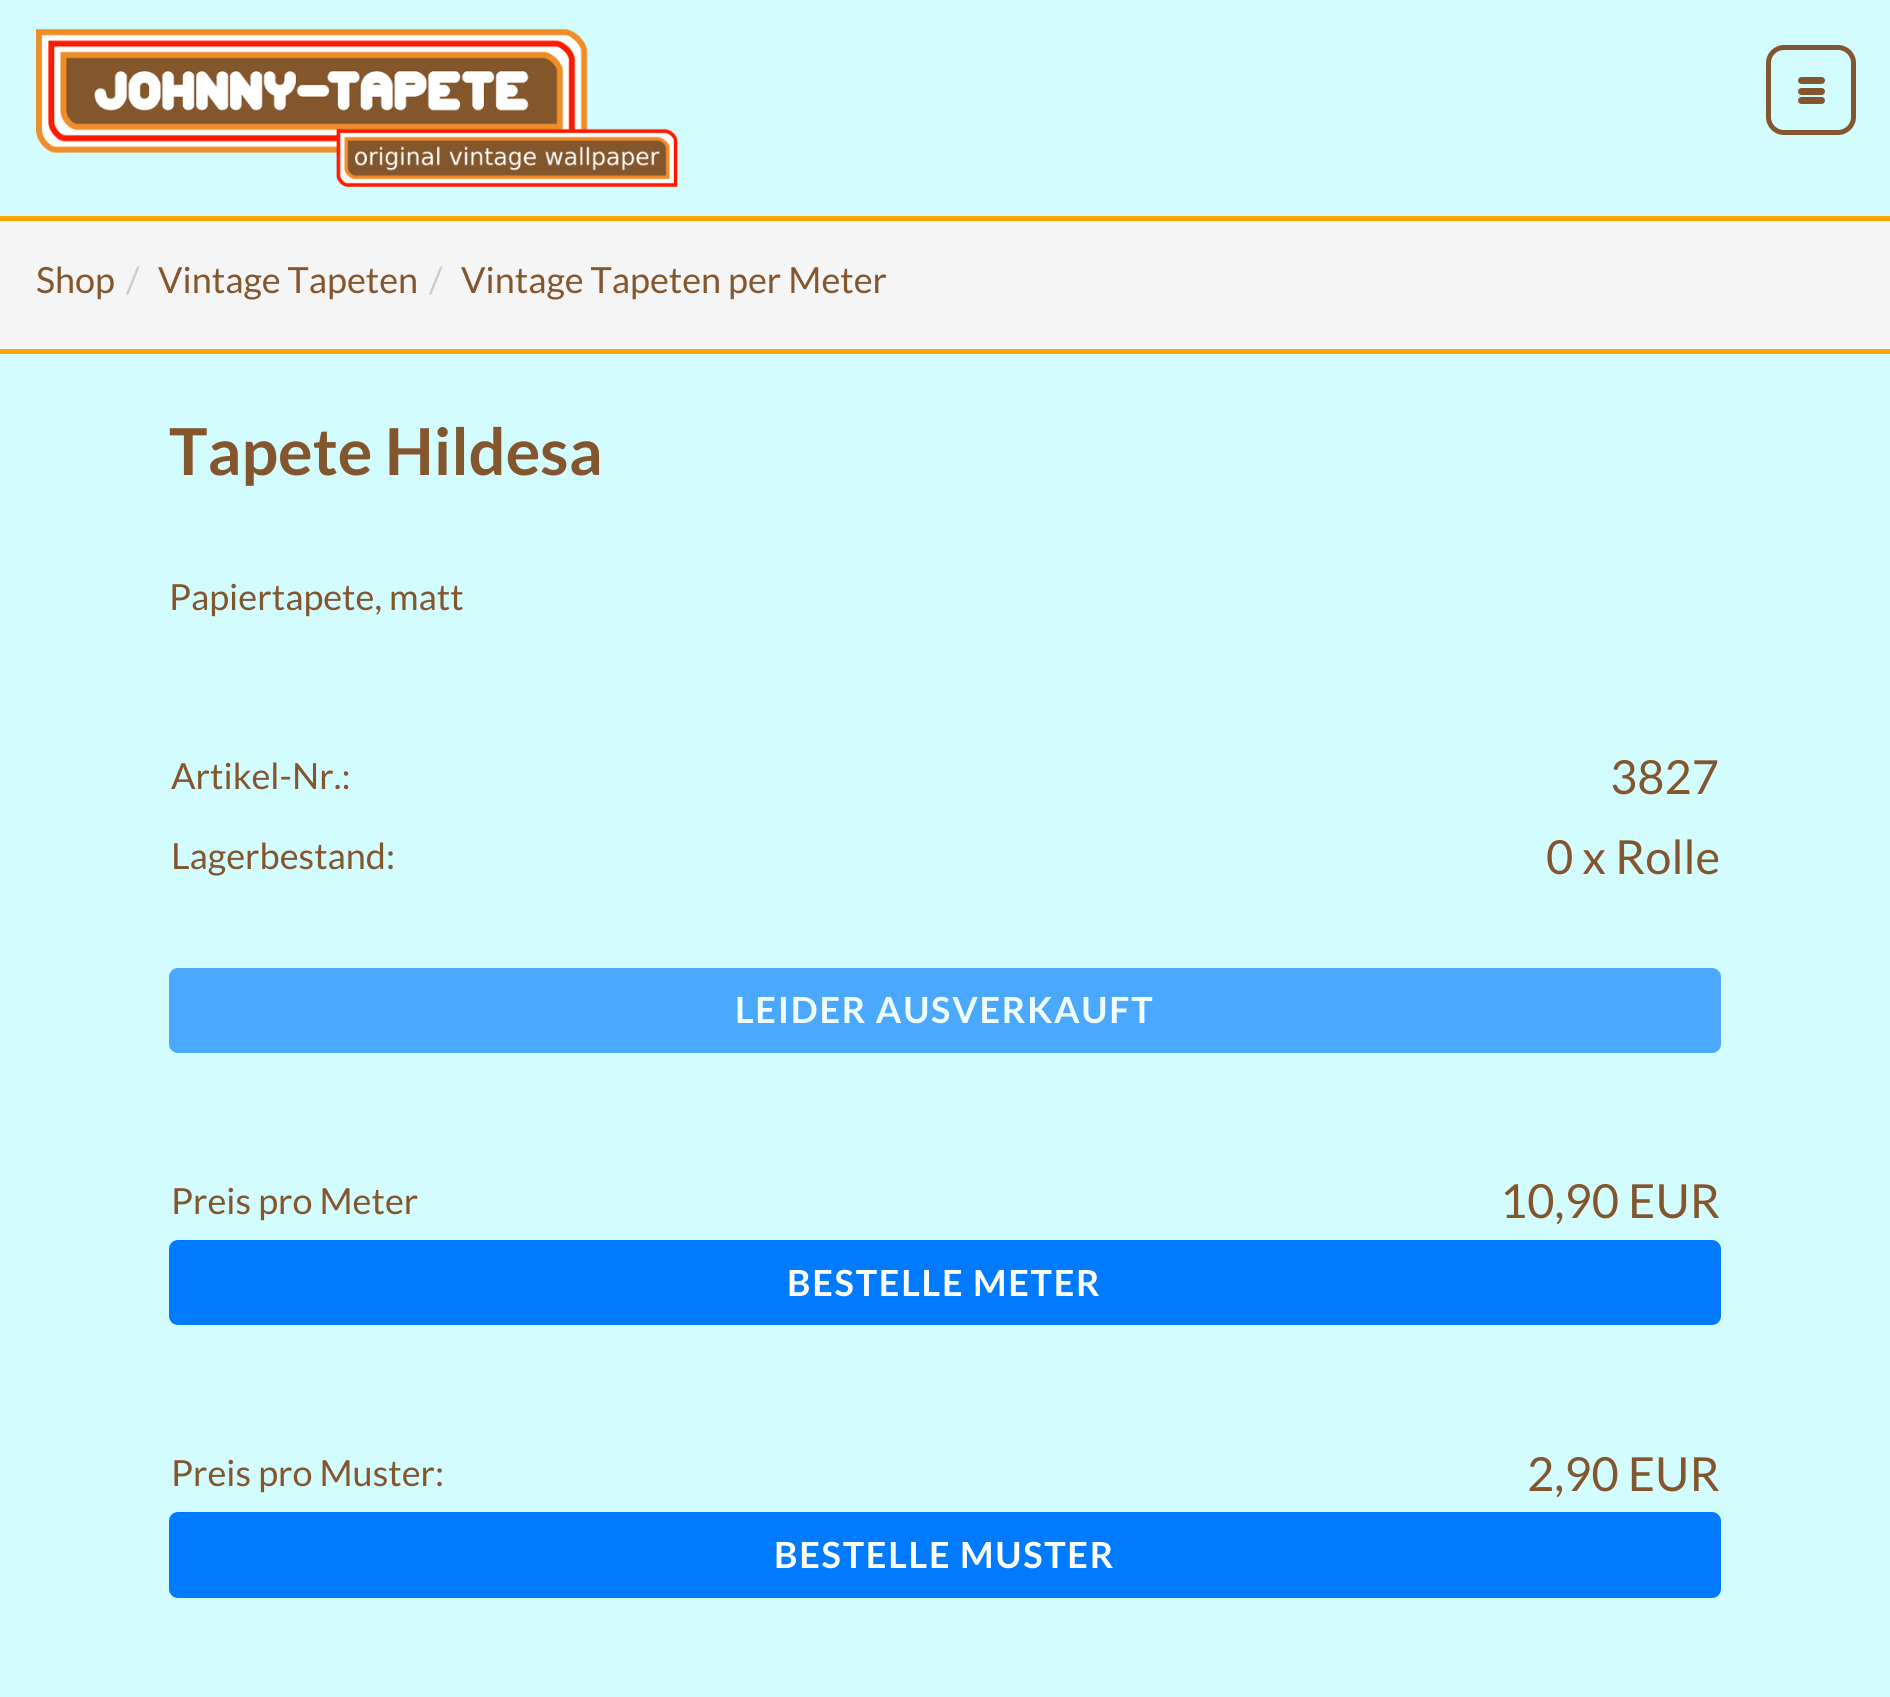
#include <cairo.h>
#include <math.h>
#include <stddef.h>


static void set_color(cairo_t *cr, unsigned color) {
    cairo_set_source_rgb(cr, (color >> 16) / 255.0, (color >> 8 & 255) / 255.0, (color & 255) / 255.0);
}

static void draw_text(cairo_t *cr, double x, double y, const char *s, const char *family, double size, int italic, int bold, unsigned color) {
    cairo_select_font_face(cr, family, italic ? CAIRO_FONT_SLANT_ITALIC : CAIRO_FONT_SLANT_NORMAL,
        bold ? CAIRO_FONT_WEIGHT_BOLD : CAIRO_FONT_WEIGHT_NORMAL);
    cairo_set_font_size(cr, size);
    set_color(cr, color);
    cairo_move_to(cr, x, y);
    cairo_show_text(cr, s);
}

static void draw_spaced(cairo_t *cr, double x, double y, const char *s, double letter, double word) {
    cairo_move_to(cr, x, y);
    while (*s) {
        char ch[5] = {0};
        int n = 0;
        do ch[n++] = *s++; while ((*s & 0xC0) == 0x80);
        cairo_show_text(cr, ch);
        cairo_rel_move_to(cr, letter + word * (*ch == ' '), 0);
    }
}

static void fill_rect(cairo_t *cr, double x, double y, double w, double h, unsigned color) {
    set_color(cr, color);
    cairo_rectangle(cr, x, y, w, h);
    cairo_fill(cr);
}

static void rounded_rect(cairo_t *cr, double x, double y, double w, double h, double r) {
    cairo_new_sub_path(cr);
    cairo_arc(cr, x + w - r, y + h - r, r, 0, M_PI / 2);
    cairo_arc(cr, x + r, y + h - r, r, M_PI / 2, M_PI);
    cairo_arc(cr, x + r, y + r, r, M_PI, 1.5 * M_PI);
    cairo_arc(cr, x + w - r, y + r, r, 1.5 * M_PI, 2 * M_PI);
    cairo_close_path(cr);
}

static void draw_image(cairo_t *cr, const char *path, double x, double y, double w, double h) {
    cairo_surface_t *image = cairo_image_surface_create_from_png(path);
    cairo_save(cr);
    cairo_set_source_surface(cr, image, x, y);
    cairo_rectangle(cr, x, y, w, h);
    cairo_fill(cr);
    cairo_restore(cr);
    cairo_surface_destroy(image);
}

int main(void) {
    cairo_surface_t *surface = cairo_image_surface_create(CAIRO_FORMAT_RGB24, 1890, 1697);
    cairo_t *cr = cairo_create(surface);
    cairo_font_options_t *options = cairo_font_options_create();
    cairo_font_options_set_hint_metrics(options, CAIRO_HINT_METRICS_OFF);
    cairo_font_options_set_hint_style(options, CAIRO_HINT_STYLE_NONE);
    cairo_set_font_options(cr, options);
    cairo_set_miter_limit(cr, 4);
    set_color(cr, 0xD3FCFE);
    cairo_paint(cr);
    draw_image(cr, "assets/img1.png", 36, 29, 642, 158);
    rounded_rect(cr, 1768.5, 47.5, 85, 85, 15.5);
    set_color(cr, 0x84562E);
    cairo_set_line_width(cr, 5);
    cairo_stroke(cr);
    rounded_rect(cr, 1798, 77, 27, 7, 3.5);
    cairo_fill(cr);
    rounded_rect(cr, 1798, 88, 27, 7, 3.5);
    cairo_fill(cr);
    rounded_rect(cr, 1798, 97, 27, 7, 3.5);
    cairo_fill(cr);
    fill_rect(cr, 0, 221, 1890, 128, 0xF5F5F5);
    fill_rect(cr, 0, 216, 1890, 5, 0xFFA500);
    fill_rect(cr, 0, 349, 1890, 5, 0xFFA500);
    draw_text(cr, 36, 293, "Shop", "Lato", 36, 0, 0, 0x84562E);
    draw_text(cr, 126, 293, "/", "Lato", 36, 0, 0, 0xCCCCCC);
    draw_text(cr, 158, 293, "Vintage Tapeten", "Lato", 36, 0, 0, 0x84562E);
    draw_text(cr, 429, 293, "/", "Lato", 36, 0, 0, 0xCCCCCC);
    draw_text(cr, 461, 293, "Vintage Tapeten per Meter", "Lato", 36, 0, 0, 0x84562E);
    draw_text(cr, 169, 475, "Tapete Hildesa", "Lato", 64.75, 0, 1, 0x84562E);
    draw_text(cr, 169, 610, "Papiertapete, matt", "Lato", 36, 0, 0, 0x84562E);
    draw_text(cr, 171, 789, "Artikel-Nr.:", "Lato", 36, 0, 0, 0x84562E);
    draw_text(cr, 1610, 794, "3827", "Lato", 47, 0, 0, 0x84562E);
    draw_text(cr, 171, 869, "Lagerbestand:", "Lato", 36, 0, 0, 0x84562E);
    draw_text(cr, 1546, 874, "0 x Rolle", "Lato", 47, 0, 0, 0x84562E);
    set_color(cr, 0x4AA8FF);
    rounded_rect(cr, 170, 969, 1550, 83, 8);
    cairo_fill_preserve(cr);
    cairo_set_line_width(cr, 2);
    cairo_stroke(cr);
    cairo_select_font_face(cr, "Lato", CAIRO_FONT_SLANT_NORMAL, CAIRO_FONT_WEIGHT_BOLD);
    cairo_set_font_size(cr, 36);
    set_color(cr, 0xF0FEFF);
    draw_spaced(cr, 735, 1023, "LEIDER AUSVERKAUFT", 1.75, 0);
    draw_text(cr, 171, 1214, "Preis pro Meter", "Lato", 36, 0, 0, 0x84562E);
    draw_text(cr, 1500, 1218, "10,90 EUR", "Lato", 47, 0, 0, 0x84562E);
    set_color(cr, 0x007BFF);
    rounded_rect(cr, 170, 1241, 1550, 83, 8);
    cairo_fill_preserve(cr);
    cairo_stroke(cr);
    cairo_select_font_face(cr, "Lato", CAIRO_FONT_SLANT_NORMAL, CAIRO_FONT_WEIGHT_BOLD);
    cairo_set_font_size(cr, 36);
    set_color(cr, 0xFFFFFF);
    draw_spaced(cr, 787, 1296, "BESTELLE METER", 1.75, 0);
    draw_text(cr, 171, 1486, "Preis pro Muster:", "Lato", 36, 0, 0, 0x84562E);
    draw_text(cr, 1527, 1491, "2,90 EUR", "Lato", 47, 0, 0, 0x84562E);
    set_color(cr, 0x007BFF);
    rounded_rect(cr, 170, 1513, 1550, 84, 8);
    cairo_fill_preserve(cr);
    cairo_stroke(cr);
    cairo_select_font_face(cr, "Lato", CAIRO_FONT_SLANT_NORMAL, CAIRO_FONT_WEIGHT_BOLD);
    cairo_set_font_size(cr, 36);
    set_color(cr, 0xFFFFFF);
    draw_spaced(cr, 774, 1568, "BESTELLE MUSTER", 1.75, 0);
    cairo_surface_write_to_png(surface, "output.png");
    cairo_font_options_destroy(options);
    cairo_destroy(cr);
    cairo_surface_destroy(surface);
    return 0;
}
